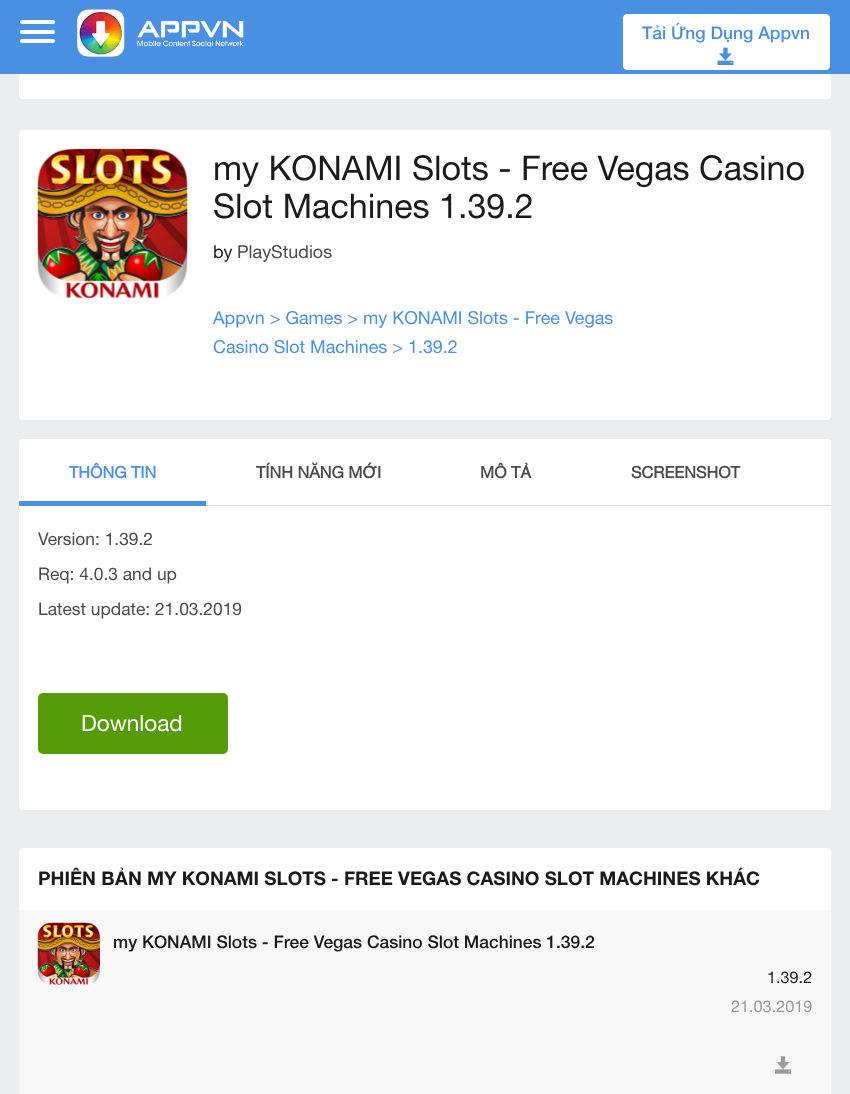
<svg xmlns="http://www.w3.org/2000/svg" width="850" height="1094">
<rect width="100%" height="100%" fill="#ecedef"/>
<rect width="850" height="74" fill="#4a90e2"/>
<rect x="20" y="20" width="35" height="4" rx="2" fill="#fff"/>
<rect x="20" y="30" width="35" height="4" rx="2" fill="#fff"/>
<rect x="20" y="39" width="35" height="4" rx="2" fill="#fff"/>
<image x="77" y="9" width="167" height="48" href="media/1.png"/>
<rect x="623.5" y="14.5" width="206" height="55" rx="3.5" fill="#fff" stroke="#fff"/>
<text x="642" y="39" style="font-family:Helvetica Neue;font-size:17.4px;font-weight:500;fill:#4a90e2">Tải Ứng Dụng Appvn</text>
<image x="717" y="47" width="17" height="18" href="media/2.png"/>
<rect x="19" y="74" width="812" height="25" rx="4" fill="#fff"/>
<rect x="19" y="130" width="812" height="290" rx="4" fill="#fff"/>
<image x="37" y="148" width="151" height="151" href="media/3.png"/>
<text x="213" y="180" style="font-family:Helvetica Neue;font-size:34.1px;fill:#1a1a1a">my KONAMI Slots - Free Vegas Casino</text>
<text x="213" y="218" style="font-family:Helvetica Neue;font-size:34.1px;fill:#1a1a1a">Slot Machines 1.39.2</text>
<text x="213" y="258" style="font-family:Helvetica Neue;font-size:17.9px;fill:#1a1a1a">by</text>
<text x="237" y="258" style="font-family:Helvetica Neue;font-size:17.9px;fill:#4a4a4a">PlayStudios</text>
<text x="213" y="324" style="font-family:Helvetica Neue;font-size:17.9px;fill:#4a90e2">Appvn &gt; Games &gt; my KONAMI Slots - Free Vegas</text>
<text x="213" y="353" style="font-family:Helvetica Neue;font-size:17.9px;fill:#4a90e2">Casino Slot Machines &gt; 1.39.2</text>
<rect x="19" y="439" width="812" height="371" rx="4" fill="#fff"/>
<rect x="206" y="505" width="625" height="1" fill="#d8d8d8"/>
<text x="69" y="478" style="font-family:Helvetica Neue;font-size:16.25px;font-weight:bold;fill:#4a90e2">THÔNG TIN</text>
<rect x="19" y="501" width="187" height="5" fill="#4a90e2"/>
<text x="256" y="478" style="font-family:Helvetica Neue;font-size:16.25px;font-weight:bold;fill:#4a4a4a">TÍNH NĂNG MỚI</text>
<text x="480" y="478" style="font-family:Helvetica Neue;font-size:16.25px;font-weight:bold;fill:#4a4a4a">MÔ TẢ</text>
<text x="631" y="478" style="font-family:Helvetica Neue;font-size:16.25px;font-weight:bold;fill:#4a4a4a">SCREENSHOT</text>
<text x="38" y="545" style="font-family:Helvetica Neue;font-size:17.4px;fill:#4a4a4a">Version: 1.39.2</text>
<text x="38" y="580" style="font-family:Helvetica Neue;font-size:17.4px;fill:#4a4a4a">Req: 4.0.3 and up</text>
<text x="38" y="615" style="font-family:Helvetica Neue;font-size:17.4px;fill:#4a4a4a">Latest update: 21.03.2019</text>
<rect x="38" y="693" width="190" height="61" rx="5" fill="#559b08"/>
<text x="81" y="731" style="font-family:Helvetica Neue;font-size:22.5px;fill:#fff">Download</text>
<rect x="19" y="848" width="812" height="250" rx="4" fill="#fff"/>
<text x="38" y="885" style="font-family:'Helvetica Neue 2';font-size:18.75px;font-weight:bold;fill:#1a1a1a">PHIÊN BẢN MY KONAMI SLOTS - FREE VEGAS CASINO SLOT MACHINES KHÁC</text>
<rect x="19" y="910" width="812" height="184" fill="#f8f8f8"/>
<image x="37" y="922" width="63" height="63" href="media/4.png"/>
<text x="113" y="948" style="font-family:Helvetica Neue;font-size:17.4px;font-weight:500;fill:#1a1a1a">my KONAMI Slots - Free Vegas Casino Slot Machines 1.39.2</text>
<text x="767" y="983" style="font-family:Helvetica Neue;font-size:16.25px;fill:#1a1a1a">1.39.2</text>
<text x="731" y="1012" style="font-family:Helvetica Neue;font-size:16.25px;fill:#9b9b9b">21.03.2019</text>
<image x="775" y="1056" width="17" height="18" href="media/5.png"/>
</svg>
